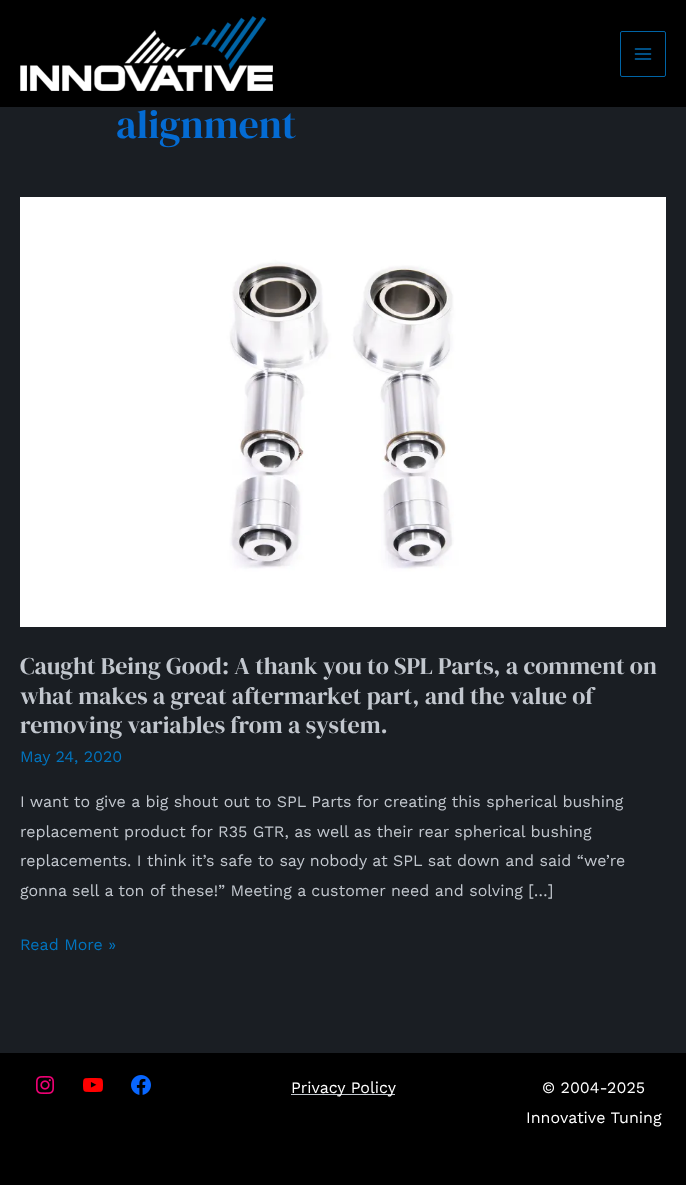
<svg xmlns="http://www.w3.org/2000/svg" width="686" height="1185">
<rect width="100%" height="100%" fill="#1a1e23"/>
<rect width="686" height="107" fill="#000"/>
<image x="20" y="16" width="253" height="75" href="media/1.png"/>
<rect x="620.5" y="31.5" width="45" height="45" rx="1.5" fill="none" stroke="#0064a6"/>
<image x="634" y="48" width="18" height="12" href="media/2.png"/>
<text x="116" y="138" style="font-family:DM Serif Display;font-size:40px;fill:#046bd2">alignment</text>
<image x="20" y="197" width="646" height="430" href="media/3.png"/>
<text x="20" y="674" style="font-family:DM Serif Display;font-size:24px;fill:#c2c7ce">Caught Being Good: A thank you to SPL Parts, a comment on</text>
<text x="20" y="704" style="font-family:DM Serif Display;font-size:24px;fill:#c2c7ce">what makes a great aftermarket part, and the value of</text>
<text x="20" y="733" style="font-family:DM Serif Display;font-size:24px;fill:#c2c7ce">removing variables from a system.</text>
<text x="20" y="762" style="font-family:Work Sans;font-size:16px;fill:#0274be">May 24, 2020</text>
<text x="20" y="807" style="font-family:Work Sans;font-size:16px;fill:#c2c7ce">I want to give a big shout out to SPL Parts for creating this spherical bushing</text>
<text x="20" y="837" style="font-family:Work Sans;font-size:16px;fill:#c2c7ce">replacement product for R35 GTR, as well as their rear spherical bushing</text>
<text x="20" y="866" style="font-family:Work Sans;font-size:16px;fill:#c2c7ce">replacements. I think it’s safe to say nobody at SPL sat down and said “we’re</text>
<text x="20" y="896" style="font-family:Work Sans;font-size:16px;fill:#c2c7ce">gonna sell a ton of these!” Meeting a customer need and solving […]</text>
<text x="20" y="950" style="font-family:Work Sans;font-size:16px;fill:#0274be">Read More »</text>
<rect y="1053" width="686" height="132" fill="#000"/>
<image x="36" y="1076" width="18" height="18" href="media/4.png"/>
<image x="83" y="1078" width="20" height="14" href="media/5.png"/>
<image x="131" y="1075" width="20" height="20" href="media/6.png"/>
<rect x="291" y="1094" width="104" height="1" fill="#c2c7ce"/>
<text x="291" y="1093" style="font-family:Work Sans;font-size:16px;fill:#fff">Privacy Policy</text>
<text x="542" y="1093" style="font-family:Work Sans;font-size:16px;fill:#fff">© 2004-2025</text>
<text x="526" y="1123" style="font-family:Work Sans;font-size:16px;fill:#fff">Innovative Tuning</text>
</svg>
